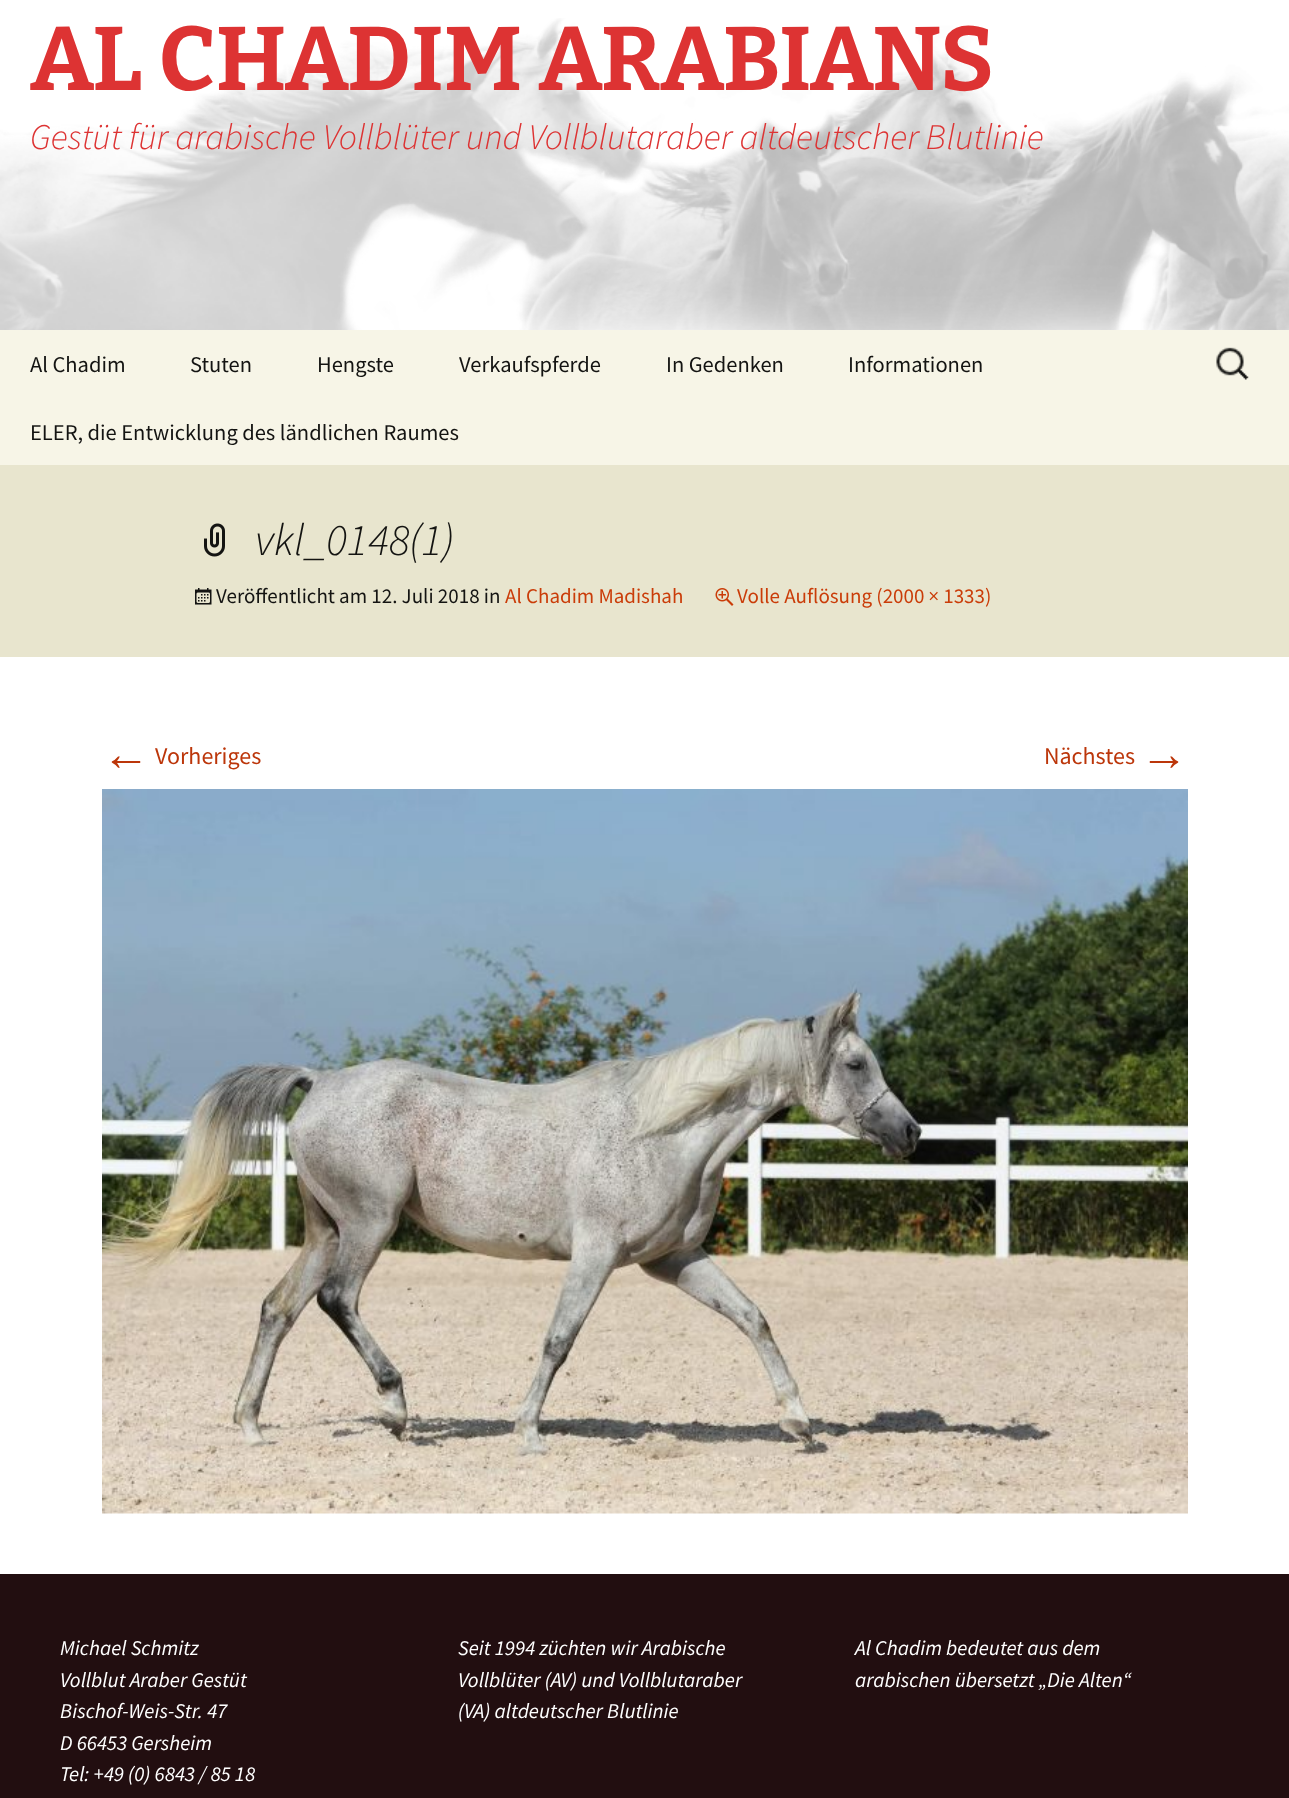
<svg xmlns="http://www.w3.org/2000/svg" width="1289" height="1798">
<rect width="100%" height="100%" fill="#fff"/>
<image x="0" y="18" width="1289" height="312" href="media/1.png"/>
<text x="30" y="90" style="font-family:Bitter;font-size:90px;font-weight:100;fill:#d33">AL CHADIM ARABIANS</text>
<text x="30" y="149" style="font-family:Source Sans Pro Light;font-size:36px;font-weight:300;font-style:italic;fill:#d33">Gestüt für arabische Vollblüter und Vollblutaraber altdeutscher Blutlinie</text>
<rect y="330" width="1289" height="135" fill="#f7f5e7"/>
<text x="30" y="372" style="font-family:Source Sans Pro;font-size:22.5px;fill:#141412">Al Chadim</text>
<text x="190" y="372" style="font-family:Source Sans Pro;font-size:22.5px;fill:#141412">Stuten</text>
<text x="317" y="372" style="font-family:Source Sans Pro;font-size:22.5px;fill:#141412">Hengste</text>
<text x="459" y="372" style="font-family:Source Sans Pro;font-size:22.5px;fill:#141412">Verkaufspferde</text>
<text x="666" y="372" style="font-family:Source Sans Pro;font-size:22.5px;fill:#141412">In Gedenken</text>
<text x="848" y="372" style="font-family:Source Sans Pro;font-size:22.5px;fill:#141412">Informationen</text>
<text x="30" y="440" style="font-family:Source Sans Pro;font-size:22.5px;fill:#141412">ELER, die Entwicklung des ländlichen Raumes</text>
<image x="1216" y="347" width="33" height="33" href="media/2.png"/>
<rect y="465" width="1289" height="192" fill="#e8e5ce"/>
<image x="204" y="523" width="21" height="34" href="media/3.png"/>
<text x="255" y="555" style="font-family:Source Sans Pro Light;font-size:45px;font-weight:300;font-style:italic;fill:#141412">vkl_0148(1)</text>
<image x="195" y="588" width="17" height="17" href="media/4.png"/>
<text x="216" y="603" style="font-family:Source Sans Pro;font-size:21px;fill:#141412">Veröffentlicht am 12. Juli 2018 in</text>
<text x="505" y="603" style="font-family:Source Sans Pro;font-size:21px;fill:#ca3c08">Al Chadim Madishah</text>
<image x="715" y="588" width="19" height="18" href="media/5.png"/>
<text x="737" y="603" style="font-family:Source Sans Pro;font-size:21px;fill:#ca3c08">Volle Auflösung (2000 × 1333)</text>
<text x="102" y="770" style="font-family:Liberation Sans;font-size:48px;fill:#bc360a">←</text>
<text x="155" y="764" style="font-family:Source Sans Pro;font-size:24px;fill:#bc360a">Vorheriges</text>
<text x="1044" y="764" style="font-family:Source Sans Pro;font-size:24px;fill:#bc360a">Nächstes</text>
<text x="1140" y="770" style="font-family:Liberation Sans;font-size:48px;fill:#bc360a">→</text>
<image x="102" y="789" width="1086" height="725" href="media/6.png"/>
<rect y="1574" width="1289" height="224" fill="#220e10"/>
<text x="60" y="1655" style="font-family:Source Sans Pro;font-size:21px;font-style:italic;fill:#fff">Michael Schmitz</text>
<text x="60" y="1687" style="font-family:Source Sans Pro;font-size:21px;font-style:italic;fill:#fff">Vollblut Araber Gestüt</text>
<text x="60" y="1718" style="font-family:Source Sans Pro;font-size:21px;font-style:italic;fill:#fff">Bischof-Weis-Str. 47</text>
<text x="60" y="1750" style="font-family:Source Sans Pro;font-size:21px;font-style:italic;fill:#fff">D 66453 Gersheim</text>
<text x="60" y="1781" style="font-family:Source Sans Pro;font-size:21px;font-style:italic;fill:#fff">Tel: +49 (0) 6843 / 85 18</text>
<text x="458" y="1655" style="font-family:Source Sans Pro;font-size:21px;font-style:italic;fill:#fff">Seit 1994 züchten wir Arabische</text>
<text x="458" y="1687" style="font-family:Source Sans Pro;font-size:21px;font-style:italic;fill:#fff">Vollblüter (AV) und Vollblutaraber</text>
<text x="458" y="1718" style="font-family:Source Sans Pro;font-size:21px;font-style:italic;fill:#fff">(VA) altdeutscher Blutlinie</text>
<text x="855" y="1655" style="font-family:Source Sans Pro;font-size:21px;font-style:italic;fill:#fff">Al Chadim bedeutet aus dem</text>
<text x="855" y="1687" style="font-family:Source Sans Pro;font-size:21px;font-style:italic;fill:#fff">arabischen übersetzt „Die Alten“</text>
</svg>
